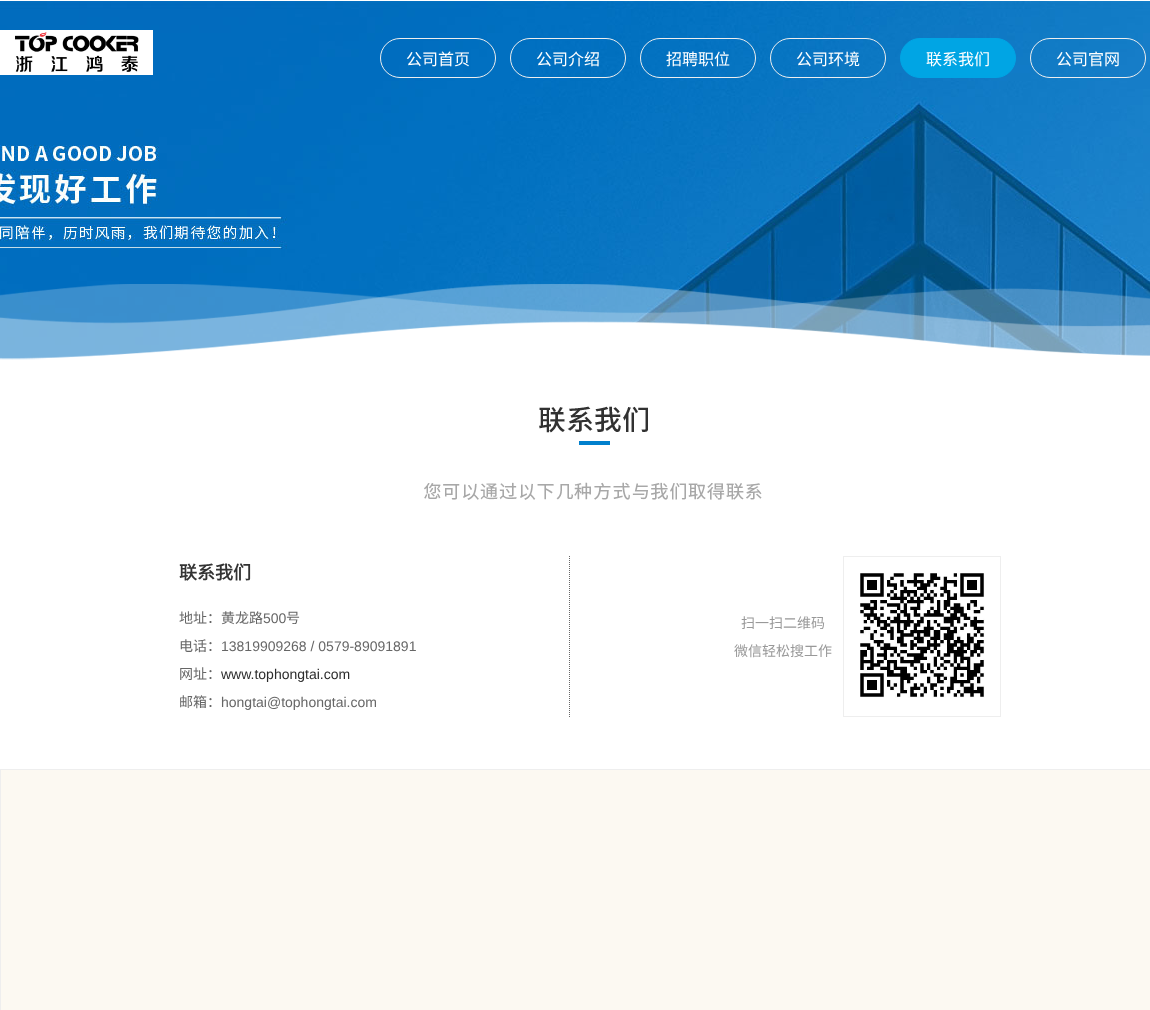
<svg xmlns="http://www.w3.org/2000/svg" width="1150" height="1010">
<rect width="100%" height="100%" fill="#fff"/>
<image x="0" y="1" width="1150" height="359" href="media/1.png"/>
<image x="0" y="30" width="153" height="45" href="media/2.png"/>
<rect x="380.5" y="38.5" width="115" height="39" rx="19.5" fill="none" stroke="#eee"/>
<text x="406" y="65" style="font-family:Noto Sans CJK SC;font-size:16px;fill:#fff">公司首页</text>
<rect x="510.5" y="38.5" width="115" height="39" rx="19.5" fill="none" stroke="#eee"/>
<text x="536" y="65" style="font-family:Noto Sans CJK SC;font-size:16px;fill:#fff">公司介绍</text>
<rect x="640.5" y="38.5" width="115" height="39" rx="19.5" fill="none" stroke="#eee"/>
<text x="666" y="65" style="font-family:Noto Sans CJK SC;font-size:16px;fill:#fff">招聘职位</text>
<rect x="770.5" y="38.5" width="115" height="39" rx="19.5" fill="none" stroke="#eee"/>
<text x="796" y="65" style="font-family:Noto Sans CJK SC;font-size:16px;fill:#fff">公司环境</text>
<rect x="900.5" y="38.5" width="115" height="39" rx="19.5" fill="#00a5e4" stroke="#00a5e4"/>
<text x="926" y="65" style="font-family:Noto Sans CJK SC;font-size:16px;fill:#fff">联系我们</text>
<rect x="1030.5" y="38.5" width="115" height="39" rx="19.5" fill="none" stroke="#eee"/>
<text x="1056" y="65" style="font-family:Noto Sans CJK SC;font-size:16px;fill:#fff">公司官网</text>
<image x="0" y="284" width="1150" height="77" href="media/3.png"/>
<image x="424" y="406" width="338" height="94" href="media/4.png"/>
<path d="M569.5 556v161" fill="none" stroke="#666" stroke-dasharray="1 1"/>
<text x="179" y="579" style="font-family:Noto Sans CJK SC;font-size:18px;font-weight:bold;fill:#333">联系我们</text>
<text x="179" y="623" style="font-family:Noto Sans CJK SC;font-size:14px;fill:#666">地址：黄龙路</text>
<text x="263" y="623" style="font-family:Liberation Sans;font-size:14px;fill:#666">500</text>
<text x="286" y="623" style="font-family:Noto Sans CJK SC;font-size:14px;fill:#666">号</text>
<text x="179" y="651" style="font-family:Noto Sans CJK SC;font-size:14px;fill:#666">电话：</text>
<text x="221" y="651" style="font-family:Liberation Sans;font-size:14px;fill:#666">13819909268 / 0579-89091891</text>
<text x="179" y="679" style="font-family:Noto Sans CJK SC;font-size:14px;fill:#666">网址：</text>
<text x="221" y="679" style="font-family:Liberation Sans;font-size:14px;fill:#2b2b2b">www.tophongtai.com</text>
<text x="179" y="707" style="font-family:Noto Sans CJK SC;font-size:14px;fill:#666">邮箱：</text>
<text x="221" y="707" style="font-family:Liberation Sans;font-size:14px;fill:#666">hongtai@tophongtai.com</text>
<text x="741" y="628" style="font-family:Noto Sans CJK SC;font-size:14px;fill:#999">扫一扫二维码</text>
<text x="734" y="656" style="font-family:Noto Sans CJK SC;font-size:14px;fill:#999">微信轻松搜工作</text>
<rect x="843.5" y="556.5" width="157" height="160" fill="none" stroke="#eee"/>
<image x="860" y="573" width="125" height="125" href="media/5.png"/>
<rect x="0.5" y="769.5" width="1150" height="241" fill="#fcf9f2" stroke="#eee"/>
</svg>
